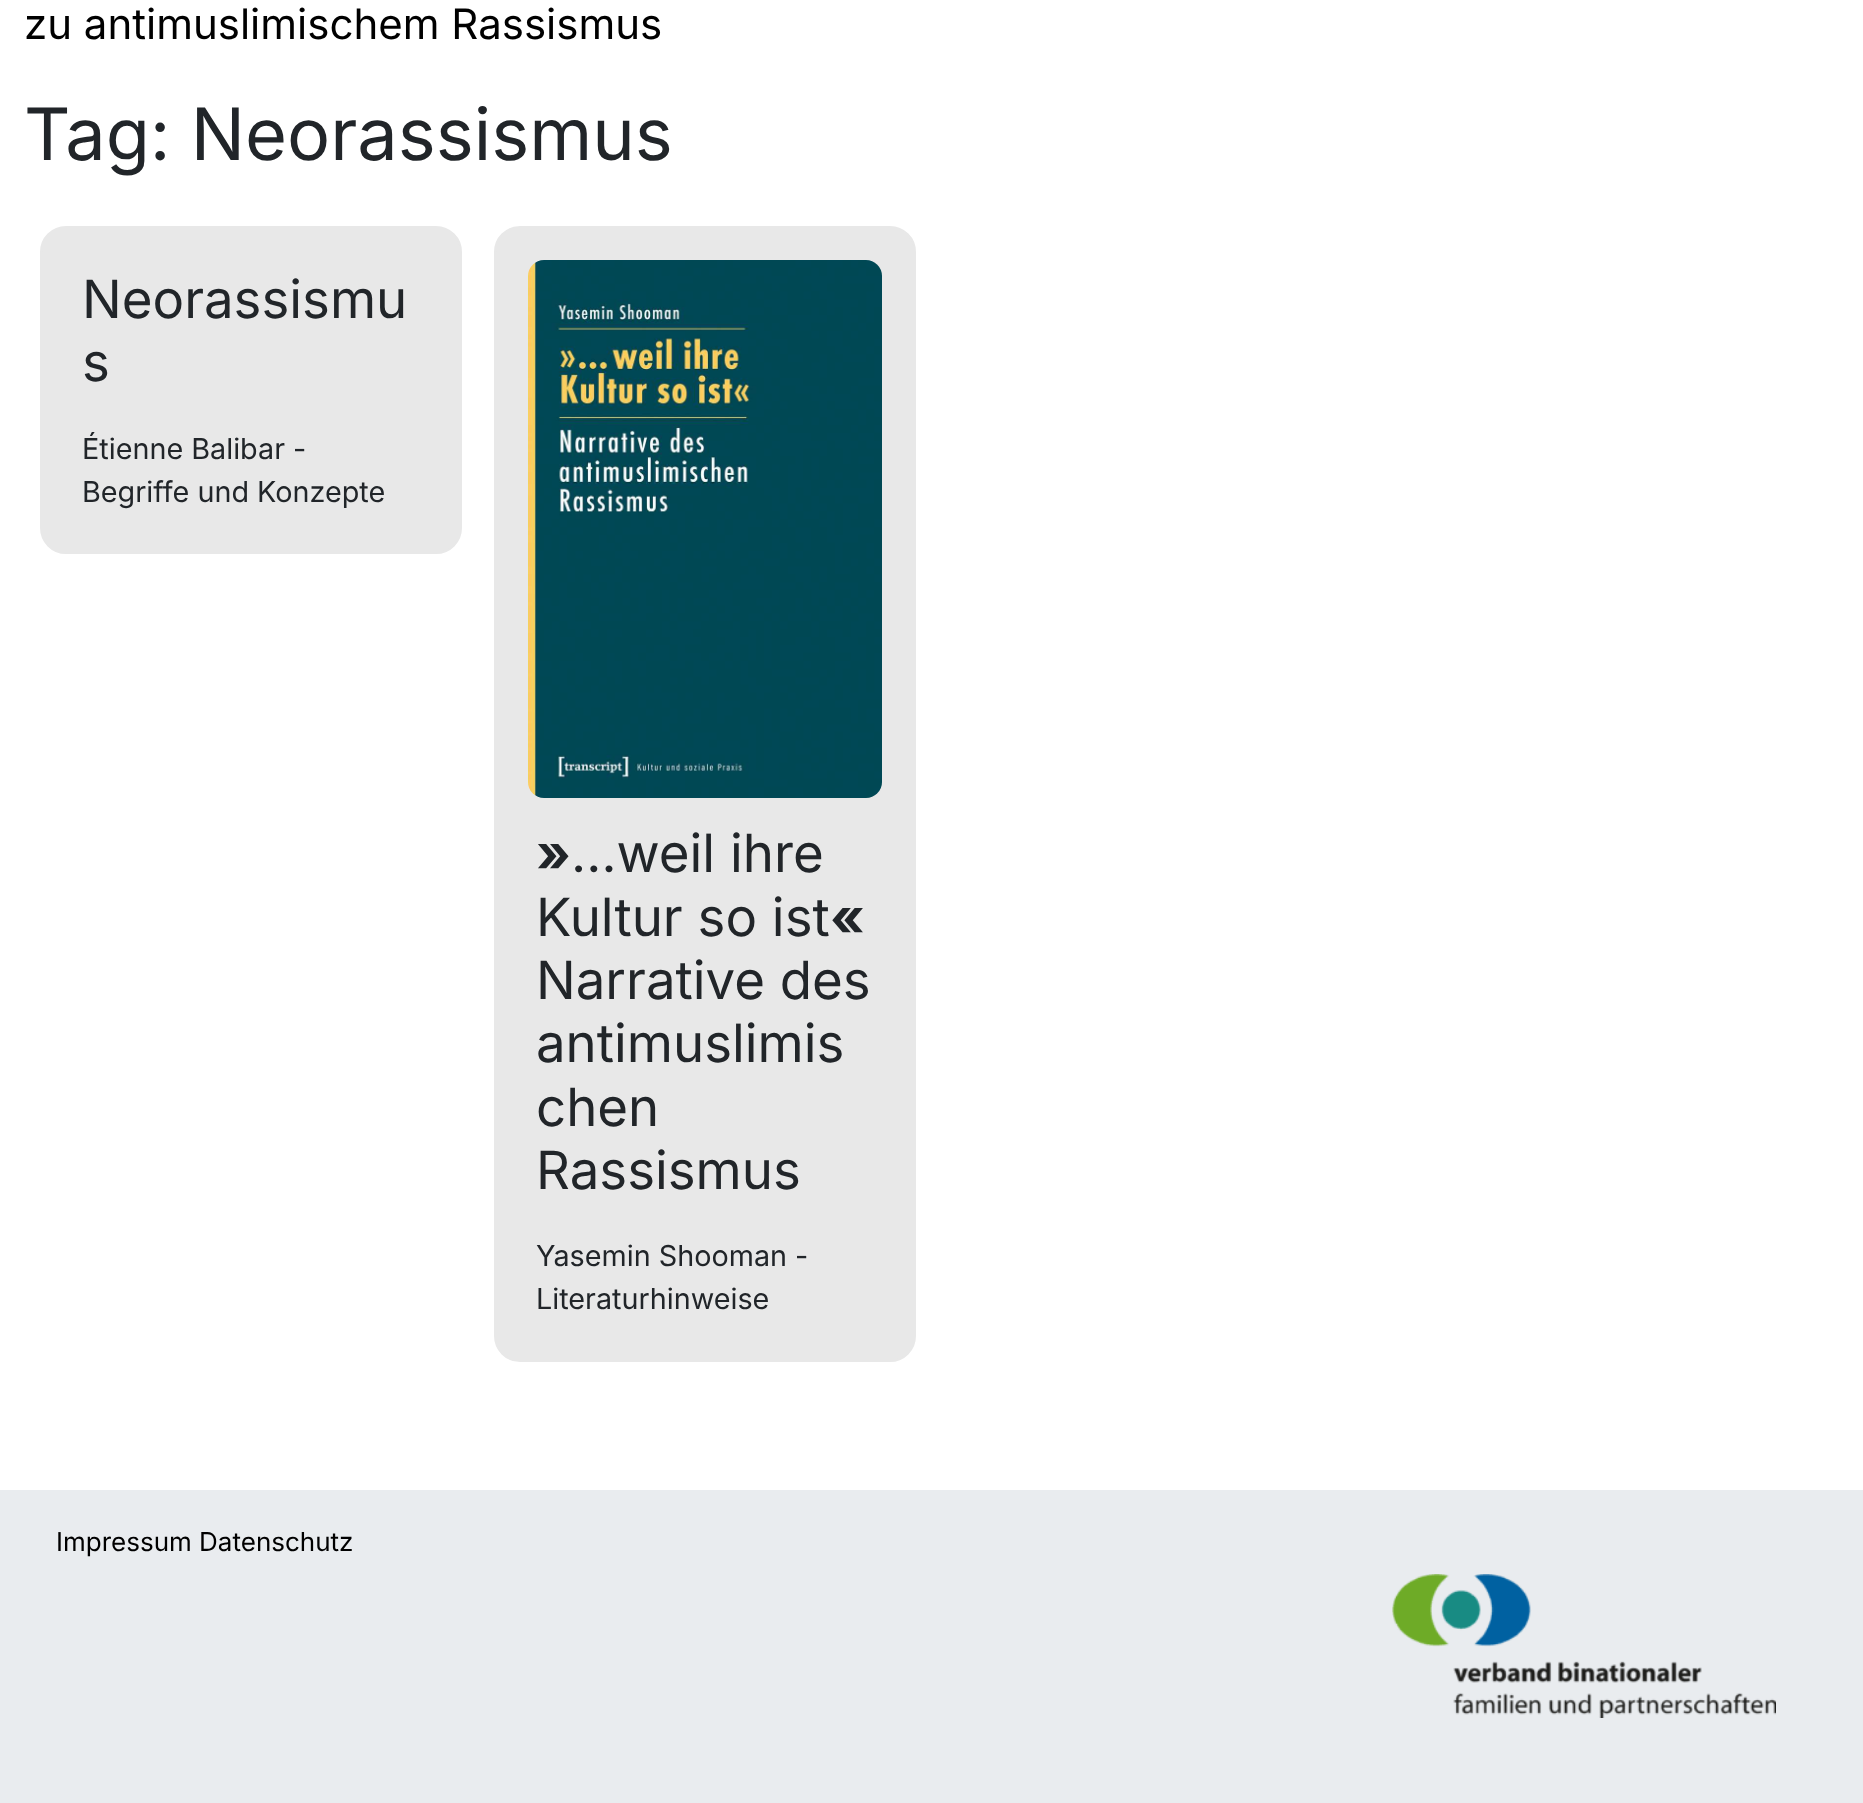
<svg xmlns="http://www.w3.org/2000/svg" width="1863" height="1803">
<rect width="100%" height="100%" fill="#fff"/>
<text x="24" y="39" style="font-family:Inter;font-size:42px;fill:#000">zu antimuslimischem Rassismus</text>
<text x="24" y="160" style="font-family:Inter;font-size:72px;fill:#212529">Tag: Neorassismus</text>
<rect x="41" y="227" width="420" height="326" rx="25" fill="#e8e8e8" stroke="#e8e8e8" stroke-width="2"/>
<text x="82" y="318" style="font-family:Inter;font-size:52.75px;fill:#212529">Neorassismu</text>
<text x="82" y="381" style="font-family:Inter;font-size:52.75px;fill:#212529">s</text>
<text x="82" y="459" style="font-family:Inter;font-size:28.75px;fill:#212529">Étienne Balibar -</text>
<text x="82" y="502" style="font-family:Inter;font-size:28.75px;fill:#212529">Begriffe und Konzepte</text>
<rect x="495" y="227" width="420" height="1134" rx="25" fill="#e8e8e8" stroke="#e8e8e8" stroke-width="2"/>
<image x="528" y="260" width="354" height="538" href="media/1.png"/>
<text x="536" y="872" style="font-family:Inter;font-size:52.75px;font-weight:bold;fill:#212529">»</text>
<text x="571" y="872" style="font-family:Inter;font-size:52.75px;fill:#212529">…weil ihre</text>
<text x="536" y="936" style="font-family:Inter;font-size:52.75px;fill:#212529">Kultur so ist</text>
<text x="830" y="936" style="font-family:Inter;font-size:52.75px;font-weight:bold;fill:#212529">«</text>
<text x="536" y="999" style="font-family:Inter;font-size:52.75px;fill:#212529">Narrative des</text>
<text x="536" y="1062" style="font-family:Inter;font-size:52.75px;fill:#212529">antimuslimis</text>
<text x="536" y="1126" style="font-family:Inter;font-size:52.75px;fill:#212529">chen</text>
<text x="536" y="1189" style="font-family:Inter;font-size:52.75px;fill:#212529">Rassismus</text>
<text x="536" y="1266" style="font-family:Inter;font-size:28.75px;fill:#212529">Yasemin Shooman -</text>
<text x="536" y="1309" style="font-family:Inter;font-size:28.75px;fill:#212529">Literaturhinweise</text>
<rect y="1490" width="1863" height="313" fill="#e9ecef"/>
<text x="56" y="1551" style="font-family:Inter;font-size:26px;fill:#000">Impressum Datenschutz</text>
<image x="1392" y="1574" width="384" height="144" href="media/2.png"/>
</svg>
